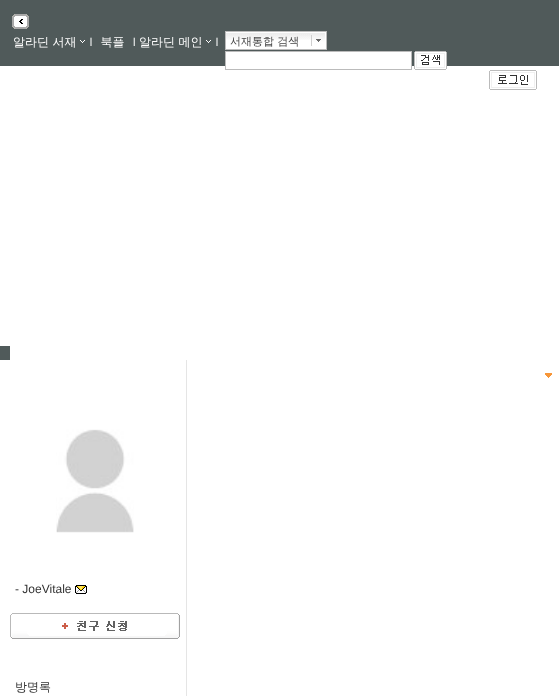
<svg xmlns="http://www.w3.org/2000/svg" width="559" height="696">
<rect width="100%" height="100%" fill="#505a5a"/>
<image x="12" y="14" width="17" height="15" href="media/1.png"/>
<text x="13" y="46" style="font-family:WenQuanYi Zen Hei;font-size:12px;font-weight:500;fill:#fff">알라딘 서재</text>
<image x="80" y="40" width="5" height="3" href="media/2.png"/>
<text x="85" y="46" style="font-family:WenQuanYi Zen Hei;font-size:12px;font-weight:500;fill:#fff">ｌ 북플 ｌ</text>
<text x="139" y="46" style="font-family:WenQuanYi Zen Hei;font-size:12px;font-weight:500;fill:#fff">알라딘 메인</text>
<image x="206" y="40" width="5" height="3" href="media/2.png"/>
<text x="211" y="46" style="font-family:WenQuanYi Zen Hei;font-size:12px;font-weight:500;fill:#fff">ｌ</text>
<rect x="226" y="32" width="100" height="17" fill="#fff"/>
<image x="226" y="33" width="85" height="7" href="media/3.png"/>
<rect x="225.5" y="31.5" width="101" height="18" fill="none" stroke="#bbb"/>
<text x="230" y="45" style="font-family:WenQuanYi Zen Hei;font-size:11px;font-weight:500;fill:#474747">서재통합 검색</text>
<image x="311" y="33" width="15" height="13" href="media/4.png"/>
<rect x="226" y="52" width="185" height="14" fill="#fff"/>
<rect y="66" width="559" height="280" fill="#fff"/>
<rect x="225.5" y="51.5" width="186" height="18" fill="none" stroke="#bbb"/>
<image x="414" y="51" width="33" height="19" href="media/5.png"/>
<image x="489" y="70" width="48" height="20" href="media/6.png"/>
<rect x="10" y="346" width="549" height="14" fill="#fff"/>
<rect y="360" width="559" height="336" fill="#fff"/>
<rect x="186" y="360" width="1" height="336" fill="#e5e5e5"/>
<image x="545" y="373" width="7" height="5" href="media/7.png"/>
<image x="56" y="429" width="78" height="104" href="media/8.png"/>
<text x="15" y="593" style="font-family:Liberation Sans;font-size:12px;fill:#333">- JoeVitale</text>
<image x="75" y="585" width="12" height="9" href="media/9.png"/>
<image x="10" y="613" width="170" height="26" href="media/10.png"/>
<text x="15" y="691" style="font-family:WenQuanYi Zen Hei;font-size:12px;font-weight:500;fill:#333">방명록</text>
</svg>
